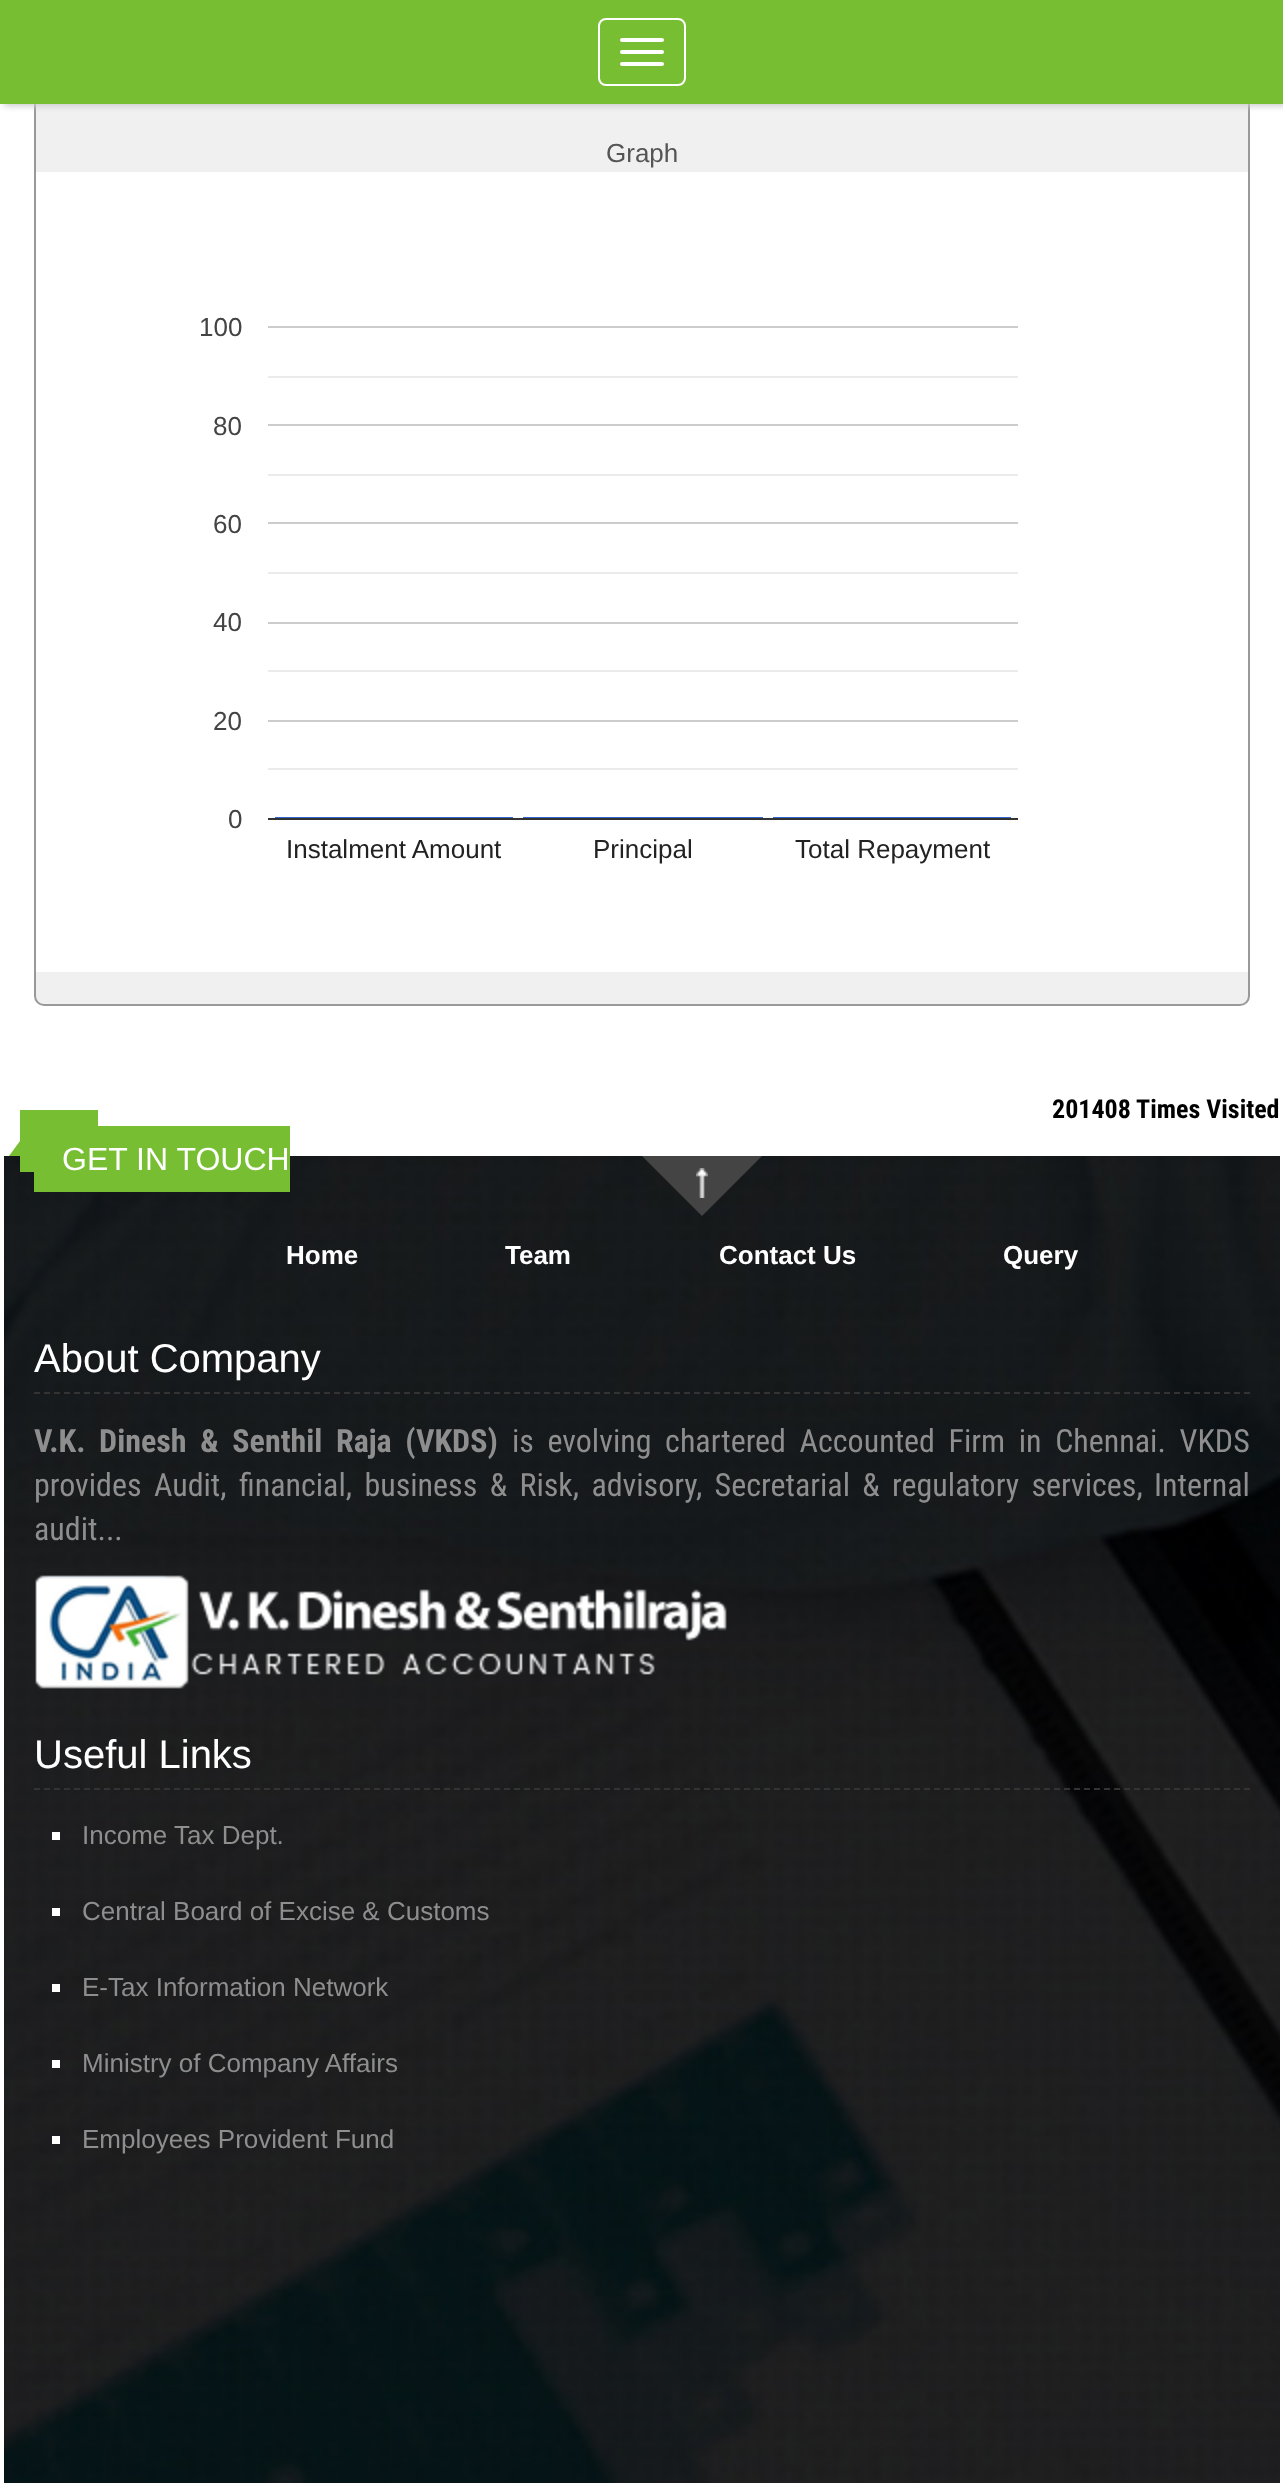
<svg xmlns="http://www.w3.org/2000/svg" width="1283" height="2483">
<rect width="100%" height="100%" fill="#fff"/>
<rect x="35" y="-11" width="1214" height="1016" rx="9" fill="#f0f0f0" stroke="#999" stroke-width="2"/>
<rect x="4" y="2" width="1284" height="104" fill="#ccc" filter="blur(3px)"/>
<rect width="1283" height="104" fill="#77be32"/>
<rect x="599" y="19" width="86" height="66" rx="7" fill="none" stroke="#fff" stroke-width="2"/>
<rect x="620" y="38" width="44" height="4" rx="2" fill="#fff"/>
<rect x="620" y="50" width="44" height="4" rx="2" fill="#fff"/>
<rect x="620" y="62" width="44" height="4" rx="2" fill="#fff"/>
<text x="606" y="162" style="font-family:Liberation Sans;font-size:26px;fill:#555">Graph</text>
<image x="36" y="172" width="1212" height="800" href="media/1.png"/>
<text x="199" y="336" style="font-family:Liberation Sans;font-size:26px;fill:#444">100</text>
<text x="213" y="435" style="font-family:Liberation Sans;font-size:26px;fill:#444">80</text>
<text x="213" y="533" style="font-family:Liberation Sans;font-size:26px;fill:#444">60</text>
<text x="213" y="631" style="font-family:Liberation Sans;font-size:26px;fill:#444">40</text>
<text x="213" y="730" style="font-family:Liberation Sans;font-size:26px;fill:#444">20</text>
<text x="228" y="828" style="font-family:Liberation Sans;font-size:26px;fill:#444">0</text>
<text x="286" y="858" style="font-family:Liberation Sans;font-size:26px;fill:#222">Instalment Amount</text>
<text x="593" y="858" style="font-family:Liberation Sans;font-size:26px;fill:#222">Principal</text>
<text x="795" y="858" style="font-family:Liberation Sans;font-size:26px;fill:#222">Total Repayment</text>
<text x="1052" y="1118" style="font-family:Roboto Condensed;font-size:26px;font-weight:bold;fill:#000">201408 Times Visited</text>
<image x="4" y="1156" width="1276" height="1327" href="media/2.png"/>
<rect x="34" y="1126" width="256" height="66" fill="#77be32"/>
<rect x="20" y="1110" width="78" height="62" fill="#77be32"/>
<text x="62" y="1170" style="font-family:Liberation Sans;font-size:32px;fill:#fff">GET IN TOUCH</text>
<path d="M31 1126h50l-22 30h-50z" fill="#77be32"/>
<path d="M642 1156h120l-60 60z" fill="#444"/>
<image x="696" y="1168" width="12" height="30" href="media/3.png"/>
<text x="286" y="1264" style="font-family:Liberation Sans;font-size:26px;font-weight:bold;fill:#fff">Home</text>
<text x="505" y="1264" style="font-family:Liberation Sans;font-size:26px;font-weight:bold;fill:#fff">Team</text>
<text x="719" y="1264" style="font-family:Liberation Sans;font-size:26px;font-weight:bold;fill:#fff">Contact Us</text>
<text x="1003" y="1264" style="font-family:Liberation Sans;font-size:26px;font-weight:bold;fill:#fff">Query</text>
<path d="M34 1393h1216" fill="none" stroke="#333" stroke-width="2" stroke-dasharray="6 4"/>
<text x="34" y="1372" style="font-family:Liberation Sans;font-size:40px;fill:#fff">About Company</text>
<text x="34" y="1452" word-spacing="6.25" style="font-family:Roboto Condensed;font-size:32px;font-weight:bold;fill:#8e8e8e">V.K. Dinesh &amp; Senthil Raja (VKDS)</text>
<text x="512" y="1452" word-spacing="6.25" style="font-family:Roboto Condensed;font-size:32px;fill:#8e8e8e">is evolving chartered Accounted Firm in Chennai. VKDS</text>
<text x="34" y="1496" word-spacing="5" style="font-family:Roboto Condensed;font-size:32px;fill:#8e8e8e">provides Audit, financial, business &amp; Risk, advisory, Secretarial &amp; regulatory services,</text>
<text x="1154" y="1496" style="font-family:Roboto Condensed;font-size:32px;fill:#8e8e8e">Internal</text>
<text x="34" y="1540" style="font-family:Roboto Condensed;font-size:32px;fill:#8e8e8e">audit...</text>
<image x="35" y="1575" width="692" height="114" href="media/4.png"/>
<path d="M34 1789h1216" fill="none" stroke="#333" stroke-width="2" stroke-dasharray="6 4"/>
<text x="34" y="1768" style="font-family:Liberation Sans;font-size:40px;fill:#fff">Useful Links</text>
<rect x="52" y="1832" width="8" height="8" fill="#fff"/>
<text x="82" y="1844" style="font-family:Liberation Sans;font-size:26px;fill:#8e8e8e">Income Tax Dept.</text>
<rect x="52" y="1908" width="8" height="8" fill="#fff"/>
<text x="82" y="1920" style="font-family:Liberation Sans;font-size:26px;fill:#8e8e8e">Central Board of Excise &amp; Customs</text>
<rect x="52" y="1984" width="8" height="8" fill="#fff"/>
<text x="82" y="1996" style="font-family:Liberation Sans;font-size:26px;fill:#8e8e8e">E-Tax Information Network</text>
<rect x="52" y="2060" width="8" height="8" fill="#fff"/>
<text x="82" y="2072" style="font-family:Liberation Sans;font-size:26px;fill:#8e8e8e">Ministry of Company Affairs</text>
<rect x="52" y="2136" width="8" height="8" fill="#fff"/>
<text x="82" y="2148" style="font-family:Liberation Sans;font-size:26px;fill:#8e8e8e">Employees Provident Fund</text>
</svg>
